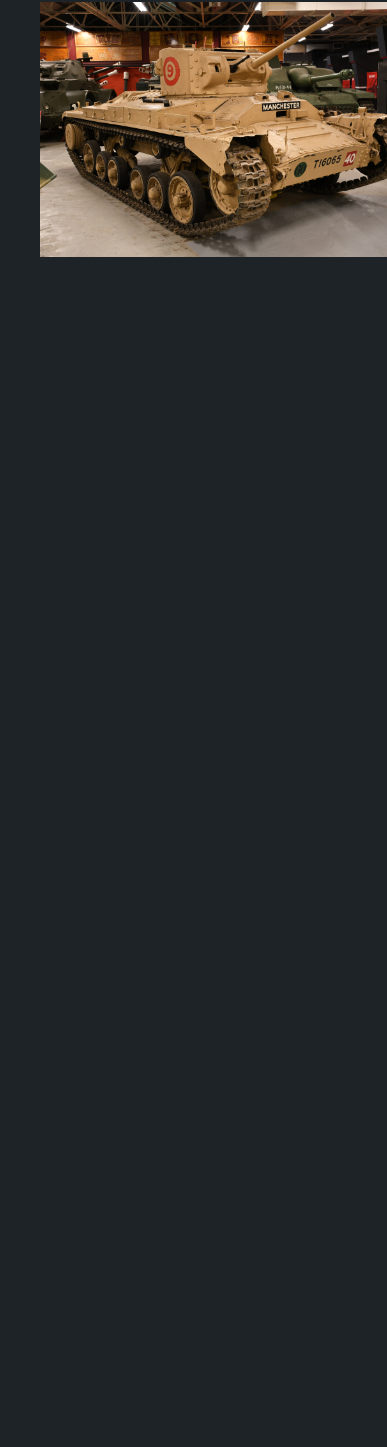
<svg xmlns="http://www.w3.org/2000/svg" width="387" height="1447">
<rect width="100%" height="100%" fill="#1d2327"/>
<image x="40" y="2" width="347" height="255" href="media/1.png"/>
</svg>
